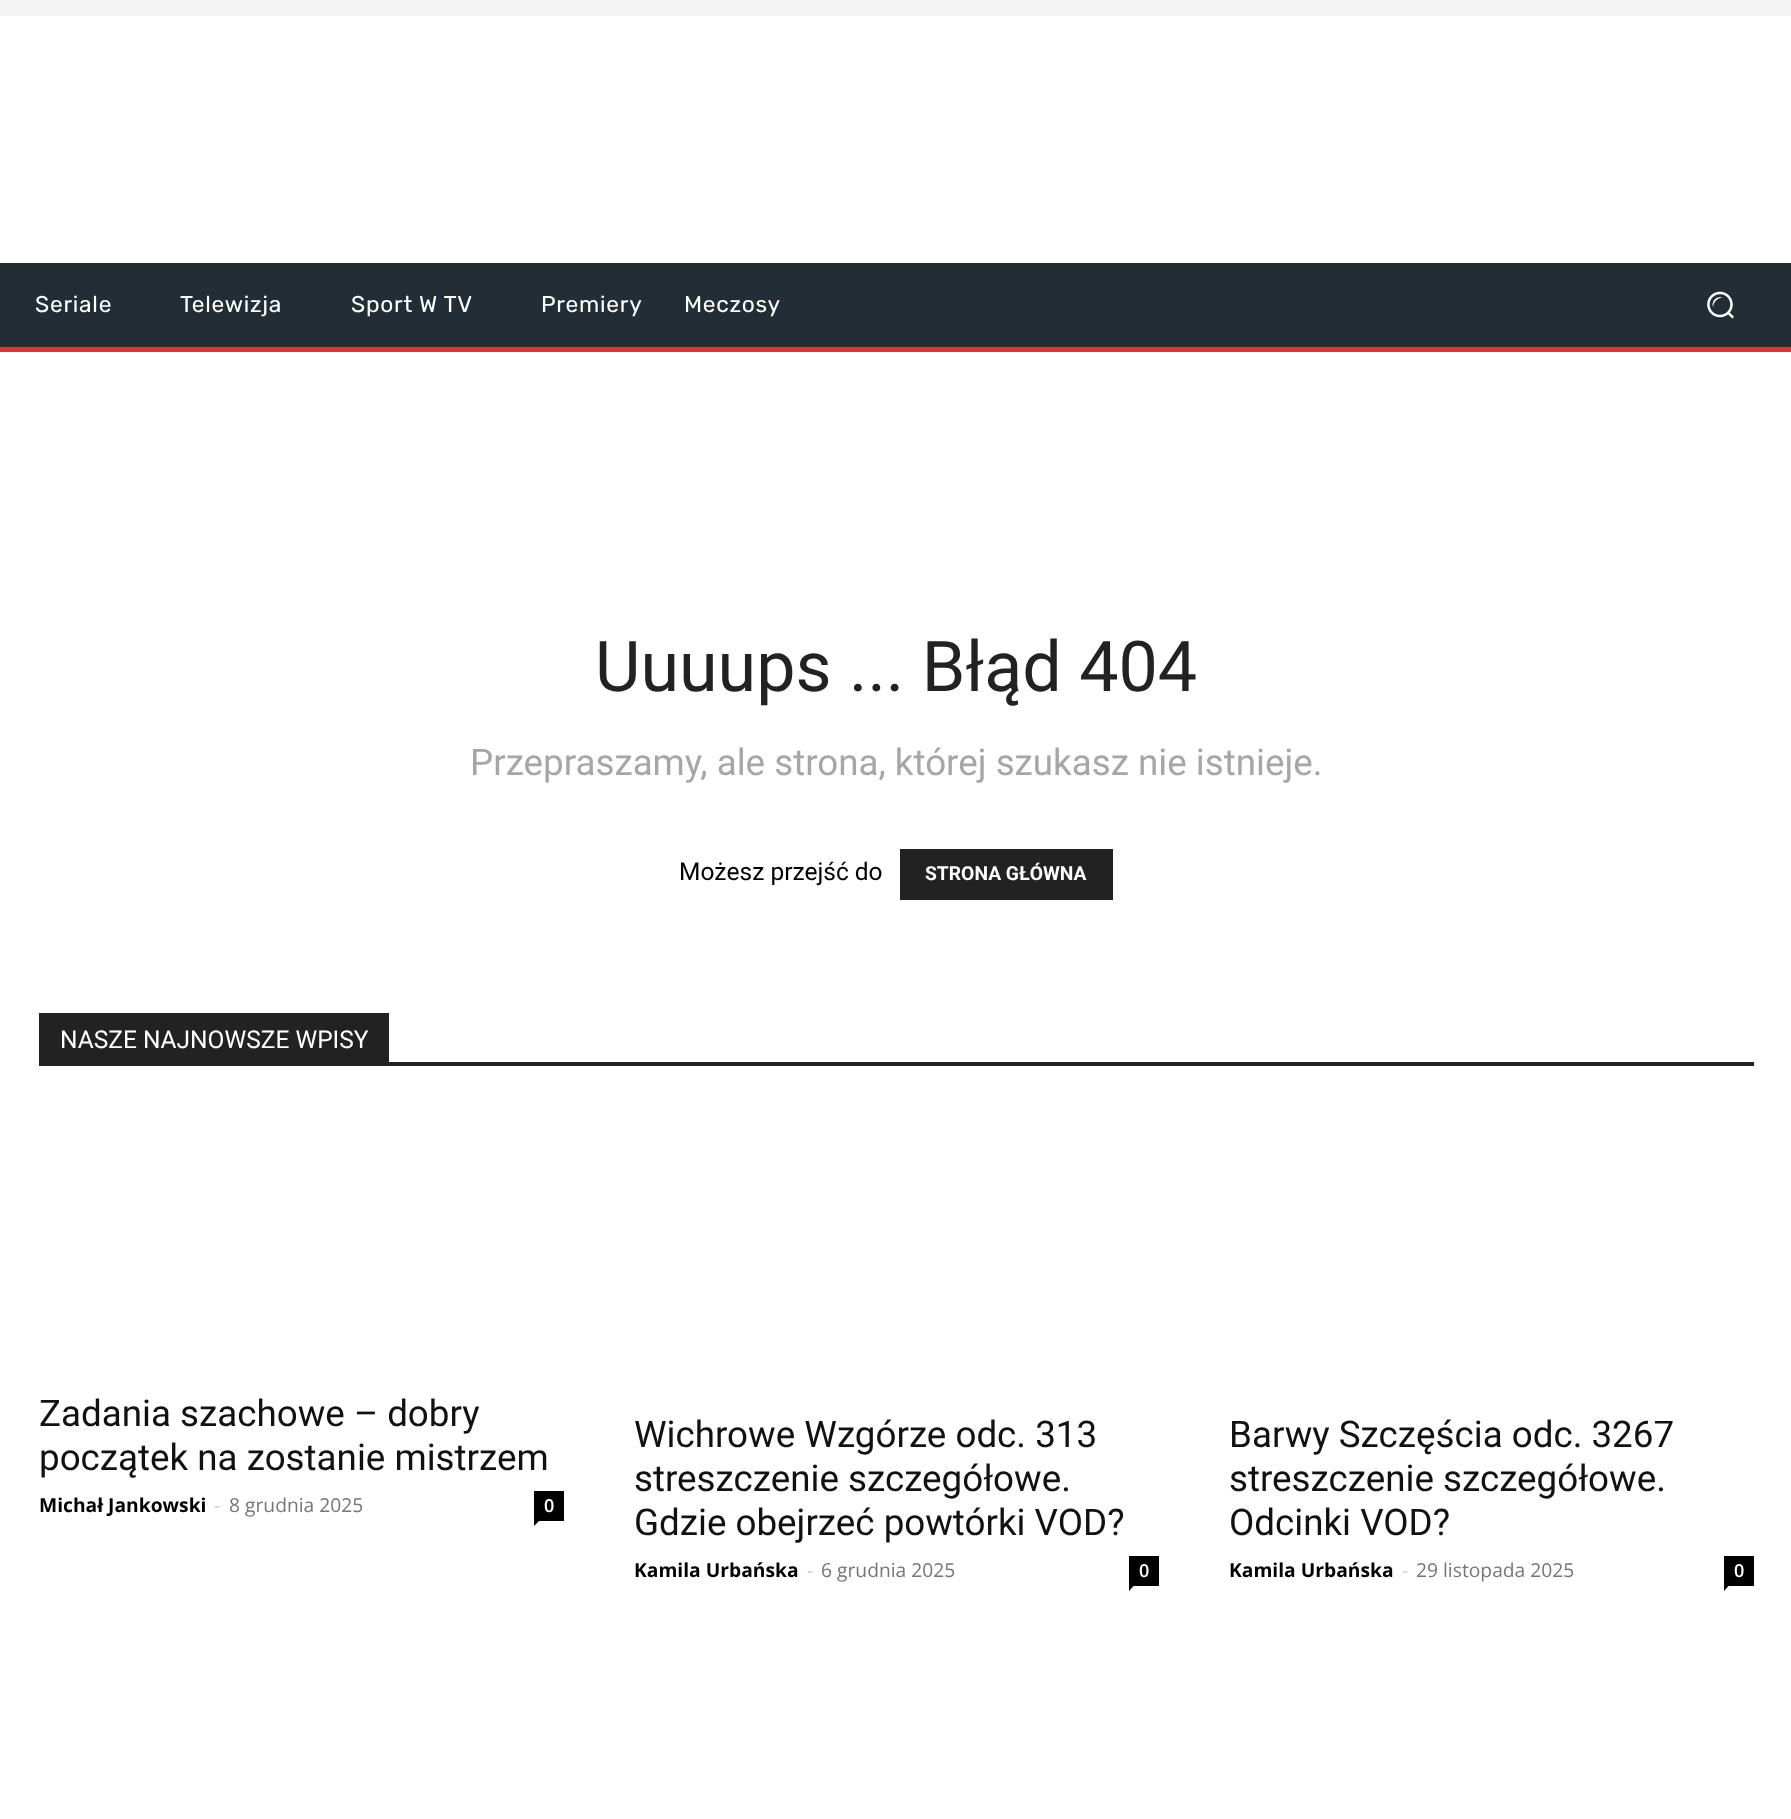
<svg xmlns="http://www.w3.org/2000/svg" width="1791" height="1819">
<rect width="100%" height="100%" fill="#fff"/>
<rect width="1791" height="16" fill="#f4f4f4"/>
<rect y="263" width="1791" height="84" fill="#232d35"/>
<text x="35" y="312" style="font-family:Rubik;font-size:22.75px;letter-spacing:0.75px;fill:#fff">Seriale</text>
<text x="180" y="312" style="font-family:Rubik;font-size:22.75px;letter-spacing:0.75px;fill:#fff">Telewizja</text>
<text x="351" y="312" style="font-family:Rubik;font-size:22.75px;letter-spacing:0.75px;fill:#fff">Sport W TV</text>
<text x="541" y="312" style="font-family:Rubik;font-size:22.75px;letter-spacing:0.75px;fill:#fff">Premiery</text>
<text x="684" y="312" style="font-family:Rubik;font-size:22.75px;letter-spacing:0.75px;fill:#fff">Meczosy</text>
<image x="1707" y="291" width="27" height="28" href="media/1.png"/>
<rect y="347" width="1791" height="5" fill="#d33"/>
<text x="595" y="691" style="font-family:Roboto;font-size:70px;fill:#222">Uuuups ... Błąd 404</text>
<text x="470" y="775" style="font-family:Roboto;font-size:36.75px;fill:#a6a6a6">Przepraszamy, ale strona, której szukasz nie istnieje.</text>
<text x="679" y="880" style="font-family:Roboto;font-size:24.5px;fill:#000">Możesz przejść do</text>
<rect x="900" y="849" width="213" height="51" fill="#222"/>
<text x="925" y="880" style="font-family:Roboto;font-size:19.25px;font-weight:bold;fill:#fff">STRONA GŁÓWNA</text>
<rect x="39" y="1062" width="1715" height="4" fill="#222"/>
<rect x="39" y="1013" width="350" height="49" fill="#222"/>
<text x="60" y="1048" style="font-family:Roboto;font-size:24.5px;fill:#fff">NASZE NAJNOWSZE WPISY</text>
<text x="39" y="1426" style="font-family:Roboto;font-size:36.75px;fill:#111">Zadania szachowe – dobry</text>
<text x="39" y="1470" style="font-family:Roboto;font-size:36.75px;fill:#111">początek na zostanie mistrzem</text>
<text x="39" y="1512" style="font-family:Open Sans;font-size:19.25px;font-weight:bold;fill:#000">Michał Jankowski</text>
<text x="214" y="1512" style="font-family:Open Sans;font-size:19.25px;fill:#ccc">-</text>
<text x="229" y="1512" style="font-family:Open Sans;font-size:19.25px;fill:#767676">8 grudnia 2025</text>
<rect x="534" y="1491" width="30" height="30" fill="#000"/>
<text x="544" y="1512" style="font-family:Open Sans;font-size:18px;font-weight:600;fill:#fff">0</text>
<path d="M534 1521h5l-5 5z" fill="#000"/>
<text x="634" y="1447" style="font-family:Roboto;font-size:36.75px;fill:#111">Wichrowe Wzgórze odc. 313</text>
<text x="634" y="1491" style="font-family:Roboto;font-size:36.75px;fill:#111">streszczenie szczegółowe.</text>
<text x="634" y="1535" style="font-family:Roboto;font-size:36.75px;fill:#111">Gdzie obejrzeć powtórki VOD?</text>
<text x="634" y="1577" style="font-family:Open Sans;font-size:19.25px;font-weight:bold;fill:#000">Kamila Urbańska</text>
<text x="807" y="1577" style="font-family:Open Sans;font-size:19.25px;fill:#ccc">-</text>
<text x="821" y="1577" style="font-family:Open Sans;font-size:19.25px;fill:#767676">6 grudnia 2025</text>
<rect x="1129" y="1556" width="30" height="30" fill="#000"/>
<text x="1139" y="1577" style="font-family:Open Sans;font-size:18px;font-weight:600;fill:#fff">0</text>
<path d="M1129 1585.5h5l-5 5.5z" fill="#000"/>
<text x="1229" y="1447" style="font-family:Roboto;font-size:36.75px;fill:#111">Barwy Szczęścia odc. 3267</text>
<text x="1229" y="1491" style="font-family:Roboto;font-size:36.75px;fill:#111">streszczenie szczegółowe.</text>
<text x="1229" y="1535" style="font-family:Roboto;font-size:36.75px;fill:#111">Odcinki VOD?</text>
<text x="1229" y="1577" style="font-family:Open Sans;font-size:19.25px;font-weight:bold;fill:#000">Kamila Urbańska</text>
<text x="1402" y="1577" style="font-family:Open Sans;font-size:19.25px;fill:#ccc">-</text>
<text x="1416" y="1577" style="font-family:Open Sans;font-size:19.25px;fill:#767676">29 listopada 2025</text>
<rect x="1724" y="1556" width="30" height="30" fill="#000"/>
<text x="1734" y="1577" style="font-family:Open Sans;font-size:18px;font-weight:600;fill:#fff">0</text>
<path d="M1724 1585.5h5l-5 5.5z" fill="#000"/>
</svg>
